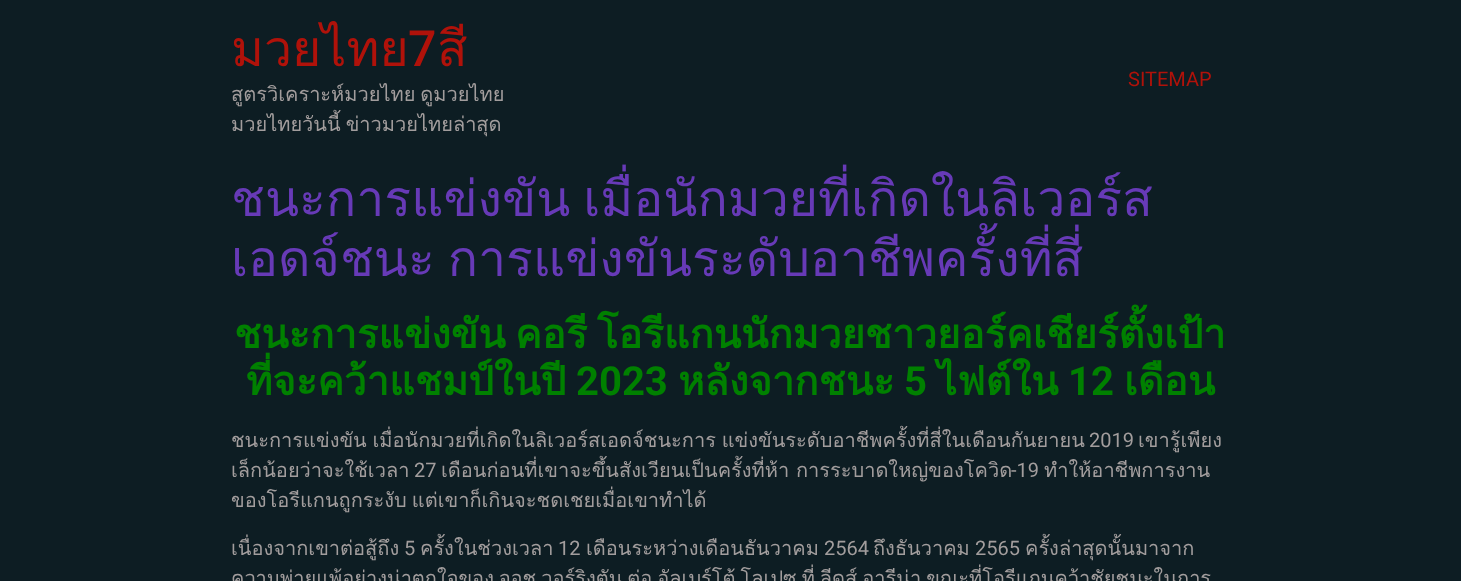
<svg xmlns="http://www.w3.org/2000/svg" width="1461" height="581">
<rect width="100%" height="100%" fill="#0d1d23"/>
<text x="231" y="66" style="font-family:Loma;font-size:50px;fill:#b0120a">มวยไทย</text>
<text x="408" y="66" style="font-family:Roboto;font-size:50px;font-weight:500;fill:#b0120a">7</text>
<text x="437" y="66" style="font-family:Loma;font-size:50px;fill:#b0120a">สี</text>
<text x="231" y="101" word-spacing="-1.75" style="font-family:Loma;font-size:20px;fill:#a29d9d">สูตรวิเคราะห์มวยไทย ดูมวยไทย</text>
<text x="231" y="131" word-spacing="-1.75" style="font-family:Loma;font-size:20px;fill:#a29d9d">มวยไทยวันนี้ ข่าวมวยไทยล่าสุด</text>
<text x="1128" y="86" style="font-family:Roboto;font-size:20px;fill:#b0120a">SITEMAP</text>
<text x="231" y="216" word-spacing="-4" style="font-family:Loma;font-size:50px;fill:#673ab7">ชนะการแข่งขัน เมื่อนักมวยที่เกิดในลิเวอร์ส</text>
<text x="231" y="276" word-spacing="-4" style="font-family:Loma;font-size:50px;fill:#673ab7">เอดจ์ชนะ การแข่งขันระดับอาชีพครั้งที่สี่</text>
<text x="234" y="348" word-spacing="-4" style="font-family:Loma;font-size:40px;font-weight:bold;fill:#008000">ชนะการแข่งขัน คอรี โอรีแกนนักมวยชาวยอร์คเชียร์ตั้งเป้า</text>
<text x="246" y="395" style="font-family:Loma;font-size:40px;font-weight:bold;fill:#008000">ที่จะคว้าแชมป์ในปี</text>
<text x="576" y="395" style="font-family:Roboto;font-size:40px;font-weight:bold;fill:#008000">2023</text>
<text x="678" y="395" style="font-family:Loma;font-size:40px;font-weight:bold;fill:#008000">หลังจากชนะ</text>
<text x="904" y="395" style="font-family:Roboto;font-size:40px;font-weight:bold;fill:#008000">5</text>
<text x="937" y="395" style="font-family:Loma;font-size:40px;font-weight:bold;fill:#008000">ไฟต์ใน</text>
<text x="1068" y="395" style="font-family:Roboto;font-size:40px;font-weight:bold;fill:#008000">12</text>
<text x="1124" y="395" style="font-family:Loma;font-size:40px;font-weight:bold;fill:#008000">เดือน</text>
<text x="231" y="447" word-spacing="-1" style="font-family:Loma;font-size:20px;fill:#a29d9d">ชนะการแข่งขัน เมื่อนักมวยที่เกิดในลิเวอร์สเอดจ์ชนะการ แข่งขันระดับอาชีพครั้งที่สี่ในเดือนกันยายน</text>
<text x="1089" y="447" style="font-family:Roboto;font-size:20px;fill:#a29d9d">2019</text>
<text x="1138" y="447" style="font-family:Loma;font-size:20px;fill:#a29d9d">เขารู้เพียง</text>
<text x="231" y="477" style="font-family:Loma;font-size:20px;fill:#a29d9d">เล็กน้อยว่าจะใช้เวลา</text>
<text x="414" y="477" style="font-family:Roboto;font-size:20px;fill:#a29d9d">27</text>
<text x="441" y="477" style="font-family:Loma;font-size:20px;fill:#a29d9d">เดือนก่อนที่เขาจะขึ้นสังเวียนเป็นครั้งที่ห้า การระบาดใหญ่ของโควิด</text>
<text x="1011" y="477" style="font-family:Roboto;font-size:20px;fill:#a29d9d">-19</text>
<text x="1044" y="477" style="font-family:Loma;font-size:20px;fill:#a29d9d">ทำให้อาชีพการงาน</text>
<text x="231" y="507" word-spacing="-1.75" style="font-family:Loma;font-size:20px;fill:#a29d9d">ของโอรีแกนถูกระงับ แต่เขาก็เกินจะชดเชยเมื่อเขาทำได้</text>
<text x="231" y="555" style="font-family:Loma;font-size:20px;fill:#a29d9d">เนื่องจากเขาต่อสู้ถึง</text>
<text x="404" y="555" style="font-family:Roboto;font-size:20px;fill:#a29d9d">5</text>
<text x="420" y="555" style="font-family:Loma;font-size:20px;fill:#a29d9d">ครั้งในช่วงเวลา</text>
<text x="558" y="555" style="font-family:Roboto;font-size:20px;fill:#a29d9d">12</text>
<text x="586" y="555" style="font-family:Loma;font-size:20px;fill:#a29d9d">เดือนระหว่างเดือนธันวาคม</text>
<text x="824" y="555" style="font-family:Roboto;font-size:20px;fill:#a29d9d">2564</text>
<text x="873" y="555" style="font-family:Loma;font-size:20px;fill:#a29d9d">ถึงธันวาคม</text>
<text x="975" y="555" style="font-family:Roboto;font-size:20px;fill:#a29d9d">2565</text>
<text x="1025" y="555" style="font-family:Loma;font-size:20px;fill:#a29d9d">ครั้งล่าสุดนั้นมาจาก</text>
<text x="231" y="585" word-spacing="-1.75" style="font-family:Loma;font-size:20px;fill:#a29d9d">ความพ่ายแพ้อย่างน่าตกใจของ จอช วอร์ริงตัน ต่อ อัลเบร์โต้ โลเปซ ที่ ลีดส์ อารีน่า ขณะที่โอรีแกนคว้าชัยชนะในการ</text>
</svg>
